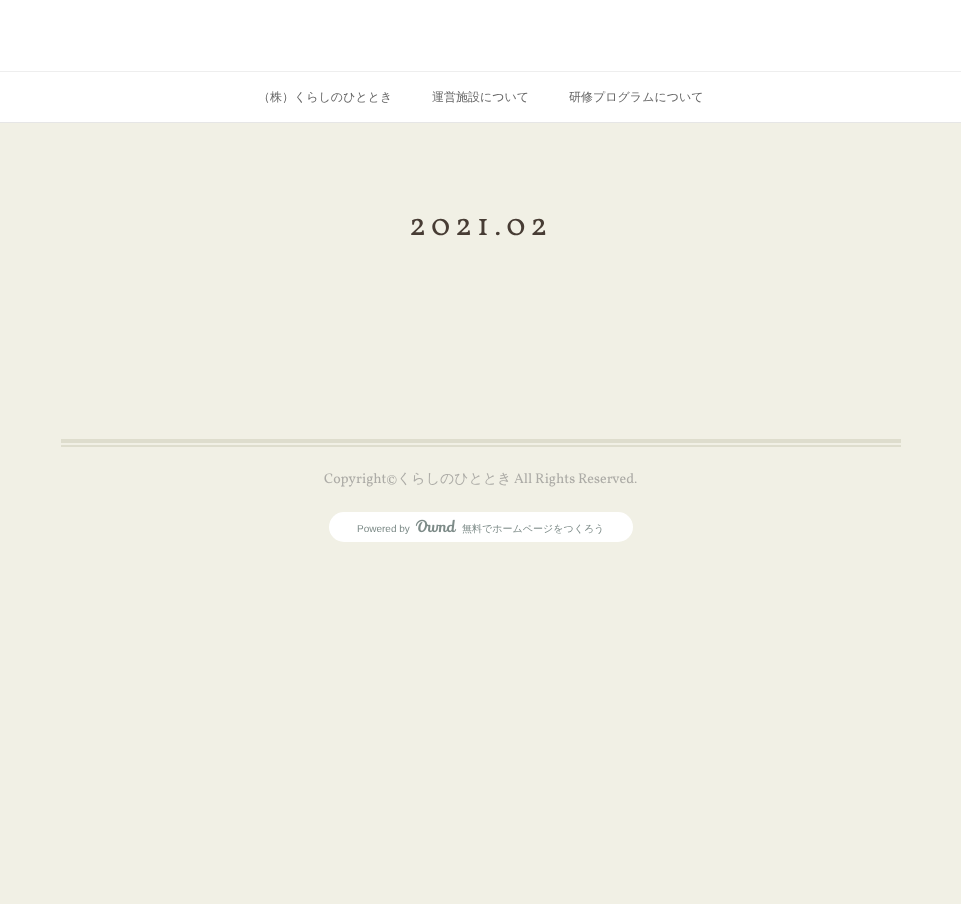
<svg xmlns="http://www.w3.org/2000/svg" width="961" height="904">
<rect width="100%" height="100%" fill="#f1f0e5"/>
<rect width="961" height="71" fill="#fff"/>
<rect y="71" width="961" height="1" fill="#eee"/>
<rect y="72" width="961" height="50" fill="#fff"/>
<rect y="122" width="961" height="1" fill="#e6e6e6"/>
<text x="258" y="101" style="font-family:WenQuanYi Zen Hei;font-size:12px;font-weight:500;fill:#666">（株）くらしのひととき</text>
<text x="432" y="101" style="font-family:WenQuanYi Zen Hei;font-size:12px;font-weight:500;fill:#666">運営施設について</text>
<text x="569" y="101" style="font-family:WenQuanYi Zen Hei;font-size:12px;font-weight:500;fill:#666">研修プログラムについて</text>
<text x="409" y="235" style="font-family:Vollkorn;font-size:32px;letter-spacing:4.75px;fill:#473c34">2021.02</text>
<rect x="61" y="439" width="840" height="4" fill="#deddcd"/>
<rect x="61" y="445" width="840" height="2" fill="#deddcd"/>
<text x="324" y="483" style="font-family:Vollkorn;font-size:14px;fill:#acaba6">Copyright©︎</text>
<text x="397" y="483" style="font-family:WenQuanYi Zen Hei;font-size:14px;font-weight:500;fill:#acaba6">くらしのひととき</text>
<text x="514" y="483" style="font-family:Vollkorn;font-size:14px;fill:#acaba6">All Rights Reserved.</text>
<rect x="329" y="512" width="304" height="30" rx="15" fill="#fff"/>
<text x="357" y="532" style="font-family:Liberation Sans;font-size:10px;fill:#7d8b88">Powered by</text>
<image x="415" y="519" width="42" height="14" href="media/1.png"/>
<text x="462" y="532" style="font-family:WenQuanYi Zen Hei;font-size:10px;font-weight:500;fill:#7d8b88">無料でホームページをつくろう</text>
</svg>
